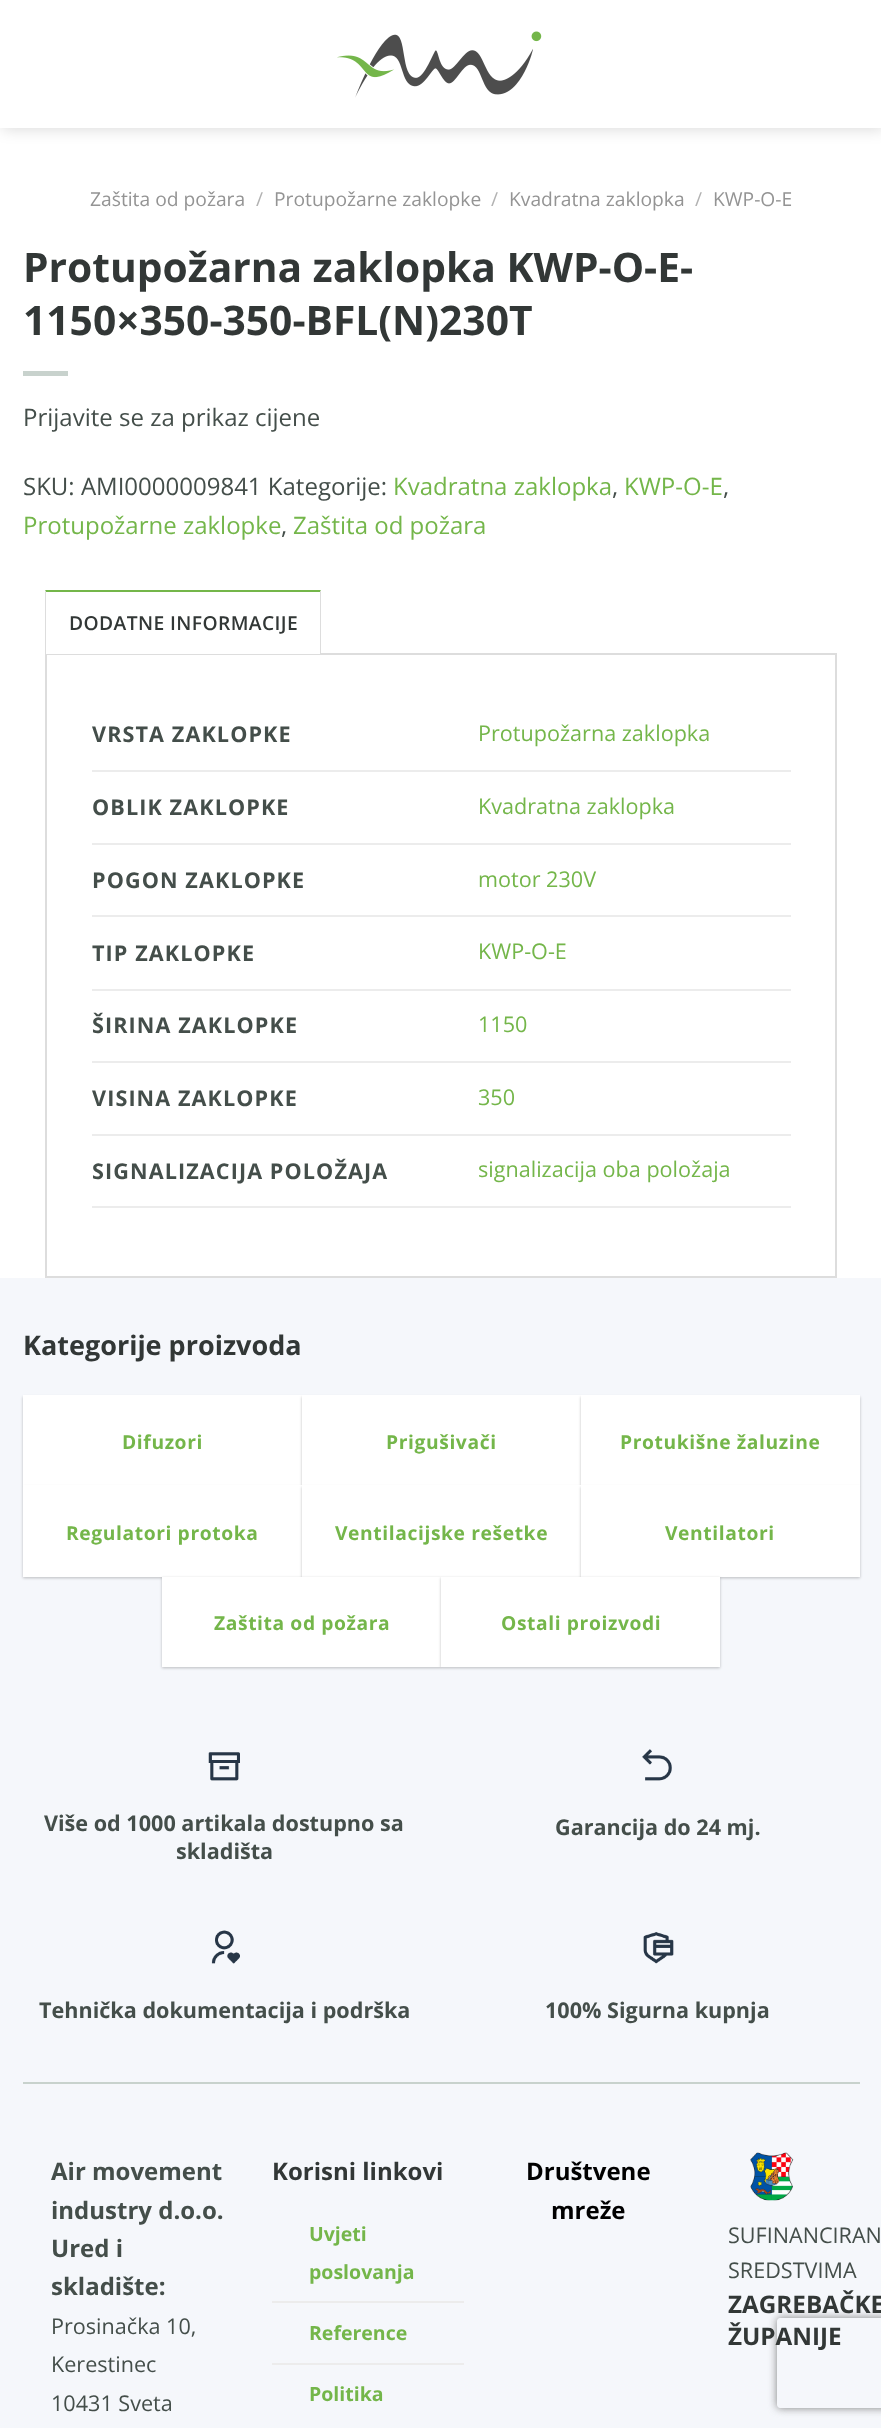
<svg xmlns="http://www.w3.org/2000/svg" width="881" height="2428">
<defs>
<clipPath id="clip1"><path d="M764 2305h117v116h-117zm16 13h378c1.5 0 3 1.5 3 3v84c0 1.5-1.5 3-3 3h-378c-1.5 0-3-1.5-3-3v-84c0-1.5 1.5-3 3-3z" clip-rule="evenodd"/></clipPath>
</defs>
<rect width="100%" height="100%" fill="#fff"/>
<rect x="2" y="2" width="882" height="127" fill="#00000026" filter="blur(7.5px)"/>
<rect width="881" height="128" fill="#fff"/>
<image x="337" y="31" width="205" height="67" href="media/1.png"/>
<text x="90" y="206" style="font-family:Open Sans;font-size:19.25px;fill:#949494">Zaštita od požara</text>
<text x="256" y="206" style="font-family:Open Sans;font-size:19.25px;fill:#b2b2b2">/</text>
<text x="274" y="206" style="font-family:Open Sans;font-size:19.25px;fill:#949494">Protupožarne zaklopke</text>
<text x="491" y="206" style="font-family:Open Sans;font-size:19.25px;fill:#b2b2b2">/</text>
<text x="509" y="206" style="font-family:Open Sans;font-size:19.25px;fill:#949494">Kvadratna zaklopka</text>
<text x="695" y="206" style="font-family:Open Sans;font-size:19.25px;fill:#b2b2b2">/</text>
<text x="713" y="206" style="font-family:Open Sans;font-size:19.25px;fill:#949494">KWP-O-E</text>
<text x="23" y="282" style="font-family:Open Sans;font-size:40.75px;font-weight:bold;fill:#323736">Protupožarna zaklopka KWP-O-E-</text>
<text x="23" y="335" style="font-family:Open Sans;font-size:40.75px;font-weight:bold;fill:#323736">1150×350-350-BFL(N)230T</text>
<rect x="23" y="371" width="45" height="5" fill="#c8d2cd"/>
<text x="23" y="426" style="font-family:Open Sans;font-size:24px;fill:#444e4a">Prijavite se za prikaz cijene</text>
<text x="23" y="495" style="font-family:Open Sans;font-size:24px;fill:#444e4a">SKU: AMI0000009841 Kategorije:</text>
<text x="393" y="495" style="font-family:Open Sans;font-size:24px;fill:#74b64a">Kvadratna zaklopka</text>
<text x="612" y="495" style="font-family:Open Sans;font-size:24px;fill:#444e4a">,</text>
<text x="624" y="495" style="font-family:Open Sans;font-size:24px;fill:#74b64a">KWP-O-E</text>
<text x="723" y="495" style="font-family:Open Sans;font-size:24px;fill:#444e4a">,</text>
<text x="23" y="534" style="font-family:Open Sans;font-size:24px;fill:#74b64a">Protupožarne zaklopke</text>
<text x="281" y="534" style="font-family:Open Sans;font-size:24px;fill:#444e4a">,</text>
<text x="293" y="534" style="font-family:Open Sans;font-size:24px;fill:#74b64a">Zaštita od požara</text>
<rect x="46" y="654" width="790" height="623" fill="none" stroke="#ddd" stroke-width="2"/>
<rect x="45" y="653" width="276" height="1" fill="#fff"/>
<path d="M45 590h276l-1 2h-274z" fill="#74b64a"/>
<path d="M321 590v64h-1v-62z" fill="#ddd"/>
<path d="M45 654v-64l1 2v62z" fill="#ddd"/>
<text x="69" y="630" style="font-family:Open Sans;font-size:19.25px;font-weight:600;letter-spacing:0.4px;fill:#323736">DODATNE INFORMACIJE</text>
<rect x="92" y="770" width="699" height="2" fill="#ececec"/>
<text x="92" y="742" style="font-family:Open Sans;font-size:21.6px;font-weight:bold;letter-spacing:1.1px;fill:#444e4a">VRSTA ZAKLOPKE</text>
<text x="478" y="741" style="font-family:Open Sans;font-size:21.6px;fill:#74b64a">Protupožarna zaklopka</text>
<rect x="92" y="843" width="699" height="2" fill="#ececec"/>
<text x="92" y="815" style="font-family:Open Sans;font-size:21.6px;font-weight:bold;letter-spacing:1.1px;fill:#444e4a">OBLIK ZAKLOPKE</text>
<text x="478" y="814" style="font-family:Open Sans;font-size:21.6px;fill:#74b64a">Kvadratna zaklopka</text>
<rect x="92" y="915" width="699" height="2" fill="#ececec"/>
<text x="92" y="888" style="font-family:Open Sans;font-size:21.6px;font-weight:bold;letter-spacing:1.1px;fill:#444e4a">POGON ZAKLOPKE</text>
<text x="478" y="887" style="font-family:Open Sans;font-size:21.6px;fill:#74b64a">motor 230V</text>
<rect x="92" y="989" width="699" height="2" fill="#ececec"/>
<text x="92" y="961" style="font-family:Open Sans;font-size:21.6px;font-weight:bold;letter-spacing:1.1px;fill:#444e4a">TIP ZAKLOPKE</text>
<text x="478" y="959" style="font-family:Open Sans;font-size:21.6px;fill:#74b64a">KWP-O-E</text>
<rect x="92" y="1061" width="699" height="2" fill="#ececec"/>
<text x="92" y="1033" style="font-family:Open Sans;font-size:21.6px;font-weight:bold;letter-spacing:1.1px;fill:#444e4a">ŠIRINA ZAKLOPKE</text>
<text x="478" y="1032" style="font-family:Open Sans;font-size:21.6px;fill:#74b64a">1150</text>
<rect x="92" y="1134" width="699" height="2" fill="#ececec"/>
<text x="92" y="1106" style="font-family:Open Sans;font-size:21.6px;font-weight:bold;letter-spacing:1.1px;fill:#444e4a">VISINA ZAKLOPKE</text>
<text x="478" y="1105" style="font-family:Open Sans;font-size:21.6px;fill:#74b64a">350</text>
<rect x="92" y="1206" width="699" height="2" fill="#ececec"/>
<text x="92" y="1179" style="font-family:Open Sans;font-size:21.6px;font-weight:bold;letter-spacing:1.1px;fill:#444e4a">SIGNALIZACIJA POLOŽAJA</text>
<text x="478" y="1177" style="font-family:Open Sans;font-size:21.6px;fill:#74b64a">signalizacija oba položaja</text>
<rect y="1278" width="881" height="1150" fill="#f5f7fb"/>
<text x="23" y="1355" style="font-family:Open Sans;font-size:27px;font-weight:bold;fill:#323736">Kategorije proizvoda</text>
<rect x="23" y="1397" width="279" height="90" fill="#0000003d" filter="blur(1.5px)"/>
<rect x="23" y="1395" width="279" height="90" fill="#fff"/>
<text x="122" y="1449" style="font-family:Open Sans;font-size:19.25px;font-weight:bold;letter-spacing:0.6px;fill:#74b64a">Difuzori</text>
<rect x="302" y="1397" width="279" height="90" fill="#0000003d" filter="blur(1.5px)"/>
<rect x="302" y="1395" width="279" height="90" fill="#fff"/>
<text x="386" y="1449" style="font-family:Open Sans;font-size:19.25px;font-weight:bold;letter-spacing:0.6px;fill:#74b64a">Prigušivači</text>
<rect x="581" y="1397" width="279" height="90" fill="#0000003d" filter="blur(1.5px)"/>
<rect x="581" y="1395" width="279" height="90" fill="#fff"/>
<text x="620" y="1449" style="font-family:Open Sans;font-size:19.25px;font-weight:bold;letter-spacing:0.6px;fill:#74b64a">Protukišne žaluzine</text>
<rect x="23" y="1487" width="279" height="91" fill="#0000003d" filter="blur(1.5px)"/>
<rect x="23" y="1485" width="279" height="92" fill="#fff"/>
<text x="66" y="1540" style="font-family:Open Sans;font-size:19.25px;font-weight:bold;letter-spacing:0.6px;fill:#74b64a">Regulatori protoka</text>
<rect x="302" y="1487" width="279" height="91" fill="#0000003d" filter="blur(1.5px)"/>
<rect x="302" y="1485" width="279" height="92" fill="#fff"/>
<text x="335" y="1540" style="font-family:Open Sans;font-size:19.25px;font-weight:bold;letter-spacing:0.6px;fill:#74b64a">Ventilacijske rešetke</text>
<rect x="581" y="1487" width="279" height="91" fill="#0000003d" filter="blur(1.5px)"/>
<rect x="581" y="1485" width="279" height="92" fill="#fff"/>
<text x="665" y="1540" style="font-family:Open Sans;font-size:19.25px;font-weight:bold;letter-spacing:0.6px;fill:#74b64a">Ventilatori</text>
<rect x="162" y="1578" width="279" height="90" fill="#0000003d" filter="blur(1.5px)"/>
<rect x="162" y="1577" width="279" height="90" fill="#fff"/>
<text x="214" y="1630" style="font-family:Open Sans;font-size:19.25px;font-weight:bold;letter-spacing:0.6px;fill:#74b64a">Zaštita od požara</text>
<rect x="441" y="1578" width="279" height="90" fill="#0000003d" filter="blur(1.5px)"/>
<rect x="441" y="1577" width="279" height="90" fill="#fff"/>
<text x="501" y="1630" style="font-family:Open Sans;font-size:19.25px;font-weight:bold;letter-spacing:0.6px;fill:#74b64a">Ostali proizvodi</text>
<image x="208" y="1752" width="32" height="29" href="media/2.png"/>
<text x="44" y="1831" style="font-family:Open Sans;font-size:21.6px;font-weight:bold;fill:#444e4a">Više od 1000 artikala dostupno sa</text>
<text x="176" y="1859" style="font-family:Open Sans;font-size:21.6px;font-weight:bold;fill:#444e4a">skladišta</text>
<image x="642" y="1749" width="30" height="32" href="media/3.png"/>
<text x="555" y="1835" style="font-family:Open Sans;font-size:21.6px;font-weight:bold;fill:#444e4a">Garancija do 24 mj.</text>
<image x="211" y="1930" width="29" height="34" href="media/4.png"/>
<text x="39" y="2018" style="font-family:Open Sans;font-size:21.6px;font-weight:bold;fill:#444e4a">Tehnička dokumentacija i podrška</text>
<image x="643" y="1932" width="31" height="32" href="media/5.png"/>
<text x="545" y="2018" style="font-family:Open Sans;font-size:21.6px;font-weight:bold;fill:#444e4a">100% Sigurna kupnja</text>
<rect x="23" y="2082" width="837" height="2" fill="#c8d2cd"/>
<text x="51" y="2180" style="font-family:Open Sans;font-size:24px;font-weight:bold;fill:#444e4a">Air movement</text>
<text x="51" y="2219" style="font-family:Open Sans;font-size:24px;font-weight:bold;fill:#444e4a">industry d.o.o.</text>
<text x="51" y="2257" style="font-family:Open Sans;font-size:24px;font-weight:bold;fill:#444e4a">Ured i</text>
<text x="51" y="2295" style="font-family:Open Sans;font-size:24px;font-weight:bold;fill:#444e4a">skladište:</text>
<text x="51" y="2334" style="font-family:Open Sans;font-size:21.6px;fill:#444e4a">Prosinačka 10,</text>
<text x="51" y="2372" style="font-family:Open Sans;font-size:21.6px;fill:#444e4a">Kerestinec</text>
<text x="51" y="2411" style="font-family:Open Sans;font-size:21.6px;fill:#444e4a">10431 Sveta</text>
<text x="272" y="2180" style="font-family:Open Sans;font-size:24px;font-weight:bold;fill:#323736">Korisni linkovi</text>
<rect x="272" y="2301" width="192" height="2" fill="#ececec"/>
<text x="309" y="2241" style="font-family:Open Sans;font-size:19.5px;font-weight:bold;fill:#74b64a">Uvjeti</text>
<text x="309" y="2279" style="font-family:Open Sans;font-size:19.5px;font-weight:bold;fill:#74b64a">poslovanja</text>
<rect x="272" y="2363" width="192" height="2" fill="#ececec"/>
<text x="309" y="2340" style="font-family:Open Sans;font-size:19.5px;font-weight:bold;fill:#74b64a">Reference</text>
<text x="309" y="2401" style="font-family:Open Sans;font-size:19.5px;font-weight:bold;fill:#74b64a">Politika</text>
<text x="526" y="2180" style="font-family:Open Sans;font-size:24px;font-weight:bold;fill:#000">Društvene</text>
<text x="551" y="2219" style="font-family:Open Sans;font-size:24px;font-weight:bold;fill:#000">mreže</text>
<image x="750" y="2152" width="44" height="49" href="media/6.png"/>
<text x="728" y="2243" style="font-family:Open Sans;font-size:21.6px;fill:#444e4a">SUFINANCIRAN</text>
<text x="728" y="2278" style="font-family:Open Sans;font-size:21.6px;fill:#444e4a">SREDSTVIMA</text>
<g clip-path="url(#clip1)">
<rect x="777" y="2318" width="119" height="90" rx="3" fill="#808080" filter="blur(4px)"/>
</g>
<text x="728" y="2313" style="font-family:Open Sans;font-size:24.25px;font-weight:bold;fill:#323736">ZAGREBAČKE</text>
<text x="728" y="2345" style="font-family:Open Sans;font-size:24.25px;font-weight:bold;fill:#323736">ŽUPANIJE</text>
</svg>
